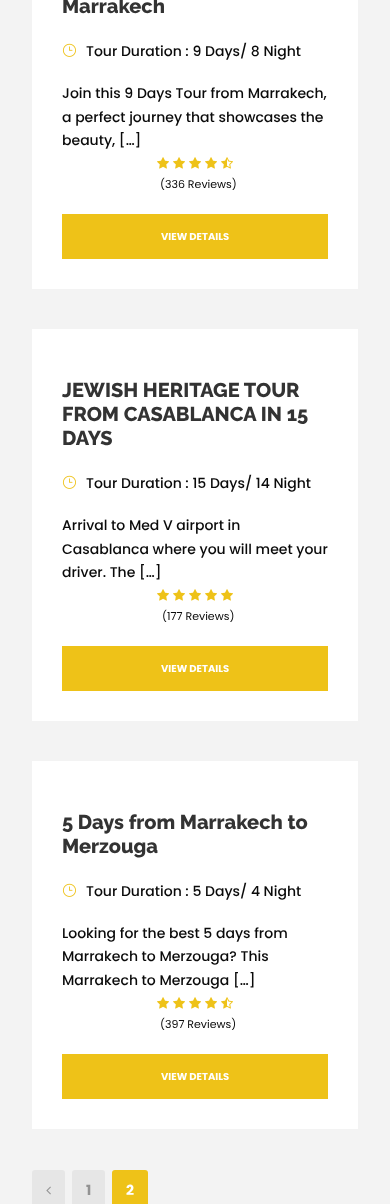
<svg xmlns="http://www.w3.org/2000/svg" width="390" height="1204">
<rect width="100%" height="100%" fill="#f3f3f3"/>
<rect x="32" width="326" height="289" fill="#fff"/>
<text x="62" y="13" style="font-family:Raleway;font-size:20px;font-weight:800;fill:#333">Marrakech</text>
<image x="62" y="43" width="14" height="14" href="media/1.png"/>
<text x="86" y="56" style="font-family:Poppins;font-size:14px;font-weight:500;fill:#0a0a0a">Tour Duration : 9 Days/ 8 Night</text>
<text x="62" y="98" style="font-family:Poppins;font-size:14px;font-weight:500;fill:#0a0a0a">Join this 9 Days Tour from Marrakech,</text>
<text x="62" y="122" style="font-family:Poppins;font-size:14px;font-weight:500;fill:#0a0a0a">a perfect journey that showcases the</text>
<text x="62" y="145" style="font-family:Poppins;font-size:14px;font-weight:500;fill:#0a0a0a">beauty, […]</text>
<image x="157" y="157" width="12" height="12" href="media/2.png"/>
<image x="173" y="157" width="12" height="12" href="media/2.png"/>
<image x="189" y="157" width="12" height="12" href="media/2.png"/>
<image x="205" y="157" width="12" height="12" href="media/2.png"/>
<image x="221" y="157" width="12" height="12" href="media/3.png"/>
<text x="160" y="188" style="font-family:Poppins;font-size:11px;fill:#0a0a0a">(336 Reviews)</text>
<rect x="62" y="214" width="266" height="45" fill="#eec218"/>
<text x="161" y="240" style="font-family:Poppins;font-size:10px;font-weight:bold;fill:#fff">VIEW DETAILS</text>
<rect x="32" y="329" width="326" height="392" fill="#fff"/>
<text x="62" y="397" style="font-family:Raleway;font-size:20px;font-weight:800;fill:#333">JEWISH HERITAGE TOUR</text>
<text x="62" y="421" style="font-family:Raleway;font-size:20px;font-weight:800;fill:#333">FROM CASABLANCA IN 15</text>
<text x="62" y="445" style="font-family:Raleway;font-size:20px;font-weight:800;fill:#333">DAYS</text>
<image x="62" y="475" width="14" height="14" href="media/1.png"/>
<text x="86" y="488" style="font-family:Poppins;font-size:14px;font-weight:500;fill:#0a0a0a">Tour Duration : 15 Days/ 14 Night</text>
<text x="62" y="530" style="font-family:Poppins;font-size:14px;font-weight:500;fill:#0a0a0a">Arrival to Med V airport in</text>
<text x="62" y="554" style="font-family:Poppins;font-size:14px;font-weight:500;fill:#0a0a0a">Casablanca where you will meet your</text>
<text x="62" y="577" style="font-family:Poppins;font-size:14px;font-weight:500;fill:#0a0a0a">driver. The […]</text>
<image x="157" y="589" width="12" height="12" href="media/2.png"/>
<image x="173" y="589" width="12" height="12" href="media/2.png"/>
<image x="189" y="589" width="12" height="12" href="media/2.png"/>
<image x="205" y="589" width="12" height="12" href="media/2.png"/>
<image x="221" y="589" width="12" height="12" href="media/2.png"/>
<text x="162" y="620" style="font-family:Poppins;font-size:11px;fill:#0a0a0a">(177 Reviews)</text>
<rect x="62" y="646" width="266" height="45" fill="#eec218"/>
<text x="161" y="672" style="font-family:Poppins;font-size:10px;font-weight:bold;fill:#fff">VIEW DETAILS</text>
<rect x="32" y="761" width="326" height="368" fill="#fff"/>
<text x="62" y="829" style="font-family:Raleway;font-size:20px;font-weight:800;fill:#333">5 Days from Marrakech to</text>
<text x="62" y="853" style="font-family:Raleway;font-size:20px;font-weight:800;fill:#333">Merzouga</text>
<image x="62" y="883" width="14" height="14" href="media/1.png"/>
<text x="86" y="896" style="font-family:Poppins;font-size:14px;font-weight:500;fill:#0a0a0a">Tour Duration : 5 Days/ 4 Night</text>
<text x="62" y="938" style="font-family:Poppins;font-size:14px;font-weight:500;fill:#0a0a0a">Looking for the best 5 days from</text>
<text x="62" y="961" style="font-family:Poppins;font-size:14px;font-weight:500;fill:#0a0a0a">Marrakech to Merzouga? This</text>
<text x="62" y="985" style="font-family:Poppins;font-size:14px;font-weight:500;fill:#0a0a0a">Marrakech to Merzouga […]</text>
<image x="157" y="997" width="12" height="12" href="media/2.png"/>
<image x="173" y="997" width="12" height="12" href="media/2.png"/>
<image x="189" y="997" width="12" height="12" href="media/2.png"/>
<image x="205" y="997" width="12" height="12" href="media/2.png"/>
<image x="221" y="997" width="12" height="12" href="media/3.png"/>
<text x="160" y="1028" style="font-family:Poppins;font-size:11px;fill:#0a0a0a">(397 Reviews)</text>
<rect x="62" y="1054" width="266" height="45" fill="#eec218"/>
<text x="161" y="1080" style="font-family:Poppins;font-size:10px;font-weight:bold;fill:#fff">VIEW DETAILS</text>
<rect x="32" y="1170" width="33" height="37" rx="3" fill="#e6e6e6"/>
<image x="46" y="1186" width="5" height="9" href="media/4.png"/>
<rect x="72" y="1170" width="33" height="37" rx="3" fill="#e6e6e6"/>
<text x="86" y="1195" style="font-family:Poppins;font-size:14px;font-weight:bold;fill:#929292">1</text>
<rect x="112" y="1170" width="36" height="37" rx="3" fill="#eec218"/>
<text x="126" y="1195" style="font-family:Poppins;font-size:14px;font-weight:bold;fill:#fff">2</text>
</svg>
